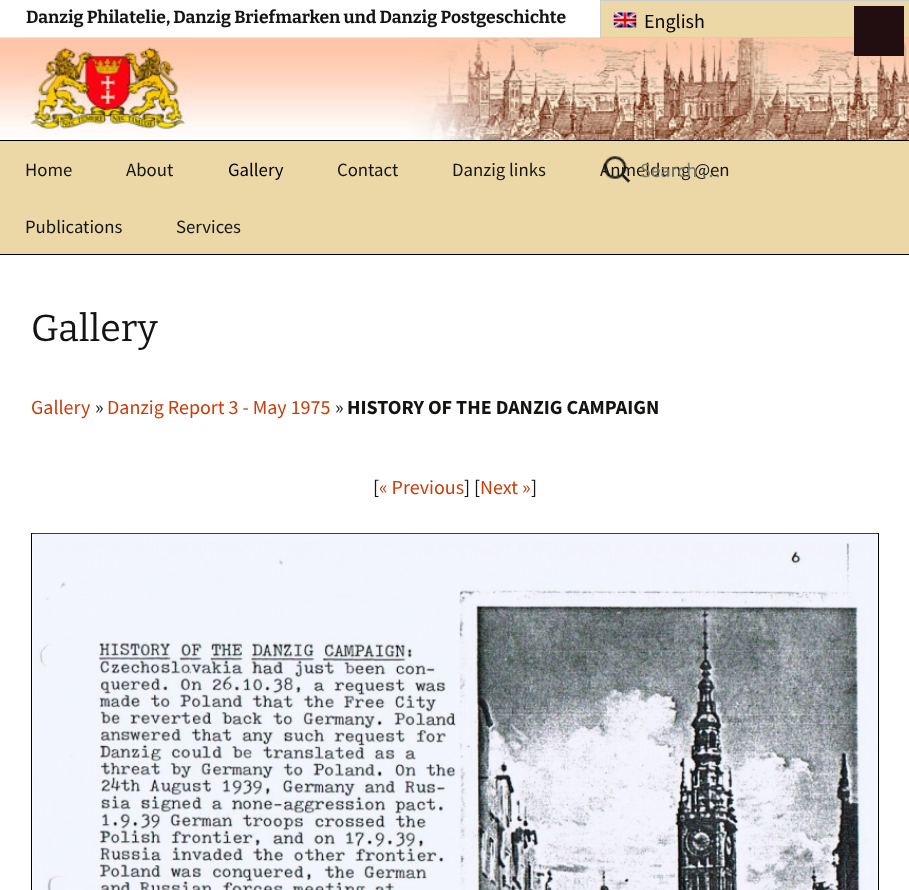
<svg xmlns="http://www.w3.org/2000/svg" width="909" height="890">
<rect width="100%" height="100%" fill="#fff"/>
<rect y="141" width="909" height="113" fill="#ecd7a6"/>
<rect y="254" width="909" height="1" fill="#000"/>
<text x="26" y="23" style="font-family:Bitter;font-size:17.5px;font-weight:bold;fill:#141412">Danzig Philatelie, Danzig Briefmarken und Danzig Postgeschichte</text>
<image x="0" y="37" width="600" height="103" href="media/2.png"/>
<image x="407" y="37" width="502" height="103" href="media/4.png"/>
<rect x="600.5" y="0.5" width="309" height="37" fill="#ecd7a6" stroke="#cdcdcd"/>
<image x="613" y="12" width="24" height="16" href="media/1.png"/>
<text x="644" y="28" style="font-family:Source Sans Pro;font-size:20px;fill:#000">English</text>
<rect y="140" width="909" height="1" fill="#000"/>
<image x="25" y="37" width="168" height="98" href="media/3.png"/>
<text x="25" y="176" style="font-family:Source Sans Pro;font-size:18.75px;fill:#141412">Home</text>
<text x="126" y="176" style="font-family:Source Sans Pro;font-size:18.75px;fill:#141412">About</text>
<text x="228" y="176" style="font-family:Source Sans Pro;font-size:18.75px;fill:#000">Gallery</text>
<text x="337" y="176" style="font-family:Source Sans Pro;font-size:18.75px;fill:#141412">Contact</text>
<text x="452" y="176" style="font-family:Source Sans Pro;font-size:18.75px;fill:#141412">Danzig links</text>
<text x="600" y="176" style="font-family:Source Sans Pro;font-size:18.75px;fill:#141412">Anmeldung @en</text>
<text x="25" y="233" style="font-family:Source Sans Pro;font-size:18.75px;fill:#141412">Publications</text>
<text x="176" y="233" style="font-family:Source Sans Pro;font-size:18.75px;fill:#141412">Services</text>
<image x="603" y="156" width="28" height="27" href="media/5.png"/>
<text x="640" y="177" style="font-family:Source Sans Pro;font-size:20px;fill:#7d7b6d">Search …</text>
<rect x="854" y="6" width="50" height="50" fill="#220e10"/>
<text x="31" y="341" style="font-family:Bitter;font-size:37.5px;fill:#141412">Gallery</text>
<text x="31" y="414" style="font-family:Source Sans Pro;font-size:20px;fill:#ca3c08">Gallery</text>
<text x="95" y="414" style="font-family:Source Sans Pro;font-size:20px;fill:#141412">»</text>
<text x="107" y="414" style="font-family:Source Sans Pro;font-size:20px;fill:#ca3c08">Danzig Report 3 - May 1975</text>
<text x="335" y="414" style="font-family:Source Sans Pro;font-size:20px;fill:#141412">»</text>
<text x="347" y="414" style="font-family:Source Sans Pro;font-size:20px;font-weight:bold;fill:#141412">HISTORY OF THE DANZIG CAMPAIGN</text>
<text x="373" y="494" style="font-family:Source Sans Pro;font-size:20px;fill:#141412">[</text>
<text x="379" y="494" style="font-family:Source Sans Pro;font-size:20px;fill:#ca3c08">« Previous</text>
<text x="464" y="494" style="font-family:Source Sans Pro;font-size:20px;fill:#141412">] [</text>
<text x="480" y="494" style="font-family:Source Sans Pro;font-size:20px;fill:#ca3c08">Next »</text>
<text x="531" y="494" style="font-family:Source Sans Pro;font-size:20px;fill:#141412">]</text>
<rect x="31.5" y="533.5" width="847" height="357" fill="none" stroke="#000"/>
<image x="32" y="533" width="846" height="357" href="media/6.png"/>
</svg>
